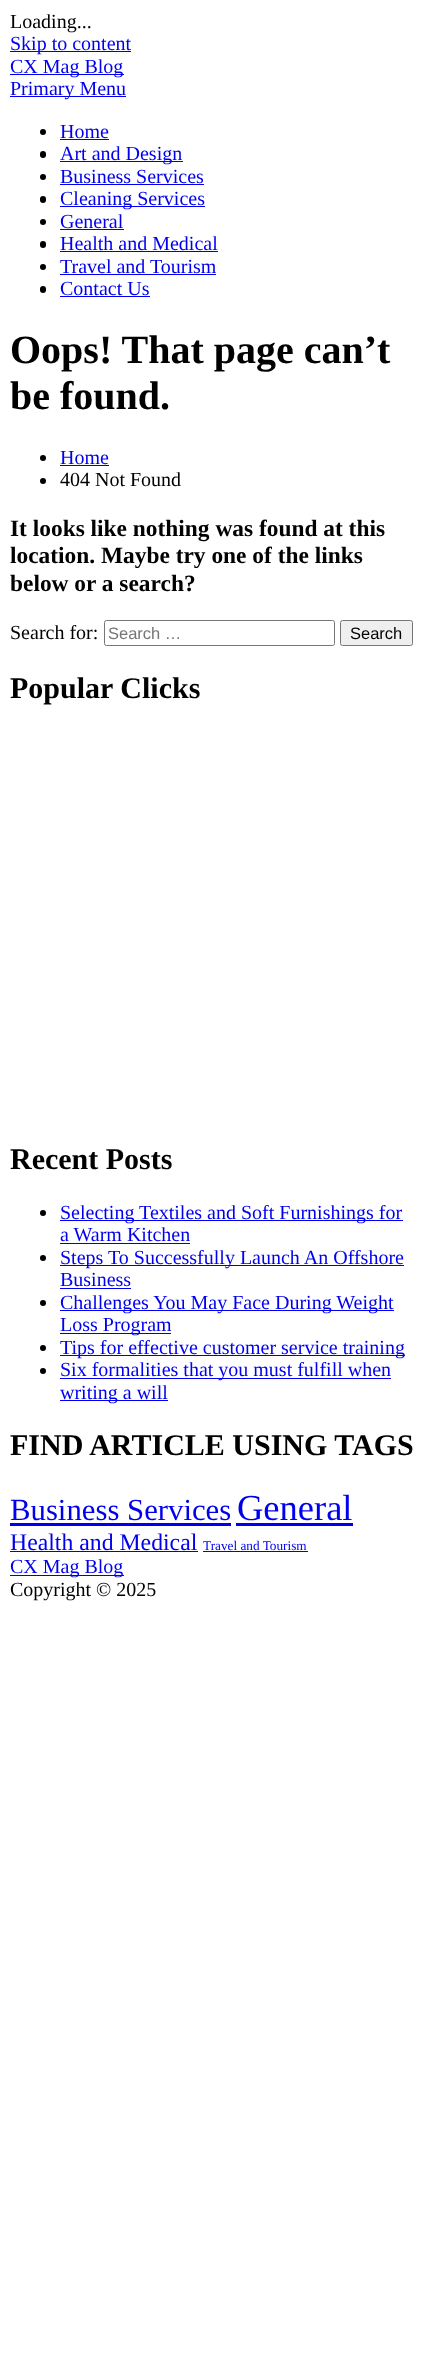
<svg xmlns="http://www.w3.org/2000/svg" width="424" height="2371">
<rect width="100%" height="100%" fill="#fff"/>
<text x="10" y="28" style="font-family:Liberation Serif;font-size:20px;fill:#000">Loading...</text>
<rect x="10" y="51" width="121" height="1" fill="#00e"/>
<text x="10" y="50" style="font-family:Liberation Serif;font-size:20px;fill:#00e">Skip to content</text>
<rect x="10" y="74" width="114" height="1" fill="#00e"/>
<text x="10" y="73" style="font-family:Liberation Serif;font-size:20px;fill:#00e">CX Mag Blog</text>
<rect x="10" y="96" width="116" height="1" fill="#00e"/>
<text x="10" y="95" style="font-family:Liberation Serif;font-size:20px;fill:#00e">Primary Menu</text>
<circle cx="43" cy="132" r="3" fill="#000"/>
<text x="60" y="138" style="font-family:Liberation Serif;font-size:20px;fill:#00e">Home</text>
<rect x="60" y="139" width="49" height="1" fill="#00e"/>
<rect x="40" y="151" width="6" height="7" rx="3" fill="#000"/>
<rect x="60" y="161" width="123" height="1" fill="#00e"/>
<text x="60" y="160" style="font-family:Liberation Serif;font-size:20px;fill:#00e">Art and Design</text>
<circle cx="43" cy="177" r="3" fill="#000"/>
<text x="60" y="183" style="font-family:Liberation Serif;font-size:20px;fill:#00e">Business Services</text>
<rect x="60" y="184" width="144" height="1" fill="#00e"/>
<rect x="40" y="196" width="6" height="7" rx="3" fill="#000"/>
<rect x="60" y="206" width="145" height="1" fill="#00e"/>
<text x="60" y="205" style="font-family:Liberation Serif;font-size:20px;fill:#00e">Cleaning Services</text>
<circle cx="43" cy="222" r="3" fill="#000"/>
<text x="60" y="228" style="font-family:Liberation Serif;font-size:20px;fill:#00e">General</text>
<rect x="60" y="229" width="64" height="1" fill="#00e"/>
<rect x="40" y="241" width="6" height="7" rx="3" fill="#000"/>
<text x="60" y="250" style="font-family:Liberation Serif;font-size:20px;fill:#00e">Health and Medical</text>
<rect x="60" y="251" width="158" height="1" fill="#00e"/>
<circle cx="43" cy="267" r="3" fill="#000"/>
<text x="60" y="273" style="font-family:Liberation Serif;font-size:20px;fill:#00e">Travel and Tourism</text>
<rect x="60" y="274" width="156" height="1" fill="#00e"/>
<rect x="40" y="286" width="6" height="7" rx="3" fill="#000"/>
<text x="60" y="295" style="font-family:Liberation Serif;font-size:20px;fill:#00e">Contact Us</text>
<rect x="60" y="296" width="90" height="1" fill="#00e"/>
<text x="10" y="363" style="font-family:Liberation Serif;font-size:40px;font-weight:bold;fill:#000">Oops! That page can’t</text>
<text x="10" y="409" style="font-family:Liberation Serif;font-size:40px;font-weight:bold;fill:#000">be found.</text>
<circle cx="43" cy="458" r="3" fill="#000"/>
<text x="60" y="464" style="font-family:Liberation Serif;font-size:20px;fill:#00e">Home</text>
<rect x="60" y="465" width="49" height="1" fill="#00e"/>
<circle cx="43" cy="481" r="3" fill="#000"/>
<text x="60" y="486" style="font-family:Liberation Serif;font-size:20px;fill:#000">404 Not Found</text>
<text x="10" y="536" style="font-family:Liberation Serif;font-size:23.4px;font-weight:bold;fill:#000">It looks like nothing was found at this</text>
<text x="10" y="563" style="font-family:Liberation Serif;font-size:23.4px;font-weight:bold;fill:#000">location. Maybe try one of the links</text>
<text x="10" y="591" style="font-family:Liberation Serif;font-size:23.4px;font-weight:bold;fill:#000">below or a search?</text>
<text x="10" y="639" style="font-family:Liberation Serif;font-size:20px;fill:#000">Search for:</text>
<rect x="104.5" y="620.5" width="230" height="25" rx="2" fill="none" stroke="#767676"/>
<text x="108" y="639" style="font-family:Liberation Sans;font-size:16.5px;fill:#757575">Search …</text>
<rect x="340.5" y="620.5" width="72" height="25" rx="2" fill="#efefef" stroke="#767676"/>
<text x="350" y="639" style="font-family:Liberation Sans;font-size:16.5px;fill:#000">Search</text>
<text x="10" y="698" style="font-family:Liberation Serif;font-size:30px;font-weight:bold;fill:#000">Popular Clicks</text>
<text x="10" y="1169" style="font-family:Liberation Serif;font-size:30px;font-weight:bold;fill:#000">Recent Posts</text>
<circle cx="43" cy="1213" r="3" fill="#000"/>
<rect x="60" y="1220" width="343" height="1" fill="#00e"/>
<text x="60" y="1219" style="font-family:Liberation Serif;font-size:20px;fill:#00e">Selecting Textiles and Soft Furnishings for</text>
<text x="60" y="1241" style="font-family:Liberation Serif;font-size:20px;fill:#00e">a Warm Kitchen</text>
<rect x="60" y="1243" width="130" height="1" fill="#00e"/>
<circle cx="43" cy="1258" r="3" fill="#000"/>
<rect x="60" y="1265" width="344" height="1" fill="#00e"/>
<text x="60" y="1264" style="font-family:Liberation Serif;font-size:20px;fill:#00e">Steps To Successfully Launch An Offshore</text>
<text x="60" y="1286" style="font-family:Liberation Serif;font-size:20px;fill:#00e">Business</text>
<rect x="60" y="1288" width="71" height="1" fill="#00e"/>
<circle cx="43" cy="1303" r="3" fill="#000"/>
<rect x="60" y="1310" width="334" height="1" fill="#00e"/>
<text x="60" y="1309" style="font-family:Liberation Serif;font-size:20px;fill:#00e">Challenges You May Face During Weight</text>
<rect x="60" y="1333" width="111" height="1" fill="#00e"/>
<text x="60" y="1331" style="font-family:Liberation Serif;font-size:20px;fill:#00e">Loss Program</text>
<circle cx="43" cy="1348" r="3" fill="#000"/>
<rect x="60" y="1355" width="345" height="1" fill="#00e"/>
<text x="60" y="1354" style="font-family:Liberation Serif;font-size:20px;fill:#00e">Tips for effective customer service training</text>
<circle cx="43" cy="1371" r="3" fill="#000"/>
<rect x="60" y="1378" width="331" height="1" fill="#00e"/>
<text x="60" y="1376" style="font-family:Liberation Serif;font-size:20px;fill:#00e">Six formalities that you must fulfill when</text>
<rect x="60" y="1400" width="108" height="1" fill="#00e"/>
<text x="60" y="1399" style="font-family:Liberation Serif;font-size:20px;fill:#00e">writing a will</text>
<text x="10" y="1455" style="font-family:Liberation Serif;font-size:30px;font-weight:bold;fill:#000">FIND ARTICLE USING TAGS</text>
<text x="10" y="1520" style="font-family:Liberation Serif;font-size:30.75px;fill:#00e">Business Services</text>
<rect x="10" y="1523" width="221" height="3" fill="#00e"/>
<text x="237" y="1520" style="font-family:Liberation Serif;font-size:36.5px;fill:#00e">General</text>
<rect x="236" y="1523" width="117" height="3" fill="#00e"/>
<text x="10" y="1550" style="font-family:Liberation Serif;font-size:23.75px;fill:#00e">Health and Medical</text>
<rect x="10" y="1551" width="188" height="1" fill="#00e"/>
<text x="203" y="1550" style="font-family:Liberation Serif;font-size:13.25px;fill:#00e">Travel and Tourism</text>
<rect x="203" y="1551" width="105" height="1" fill="#00e"/>
<rect x="10" y="1575" width="114" height="1" fill="#00e"/>
<text x="10" y="1573" style="font-family:Liberation Serif;font-size:20px;fill:#00e">CX Mag Blog</text>
<text x="10" y="1596" style="font-family:Liberation Serif;font-size:20px;fill:#000">Copyright © 2025</text>
</svg>
